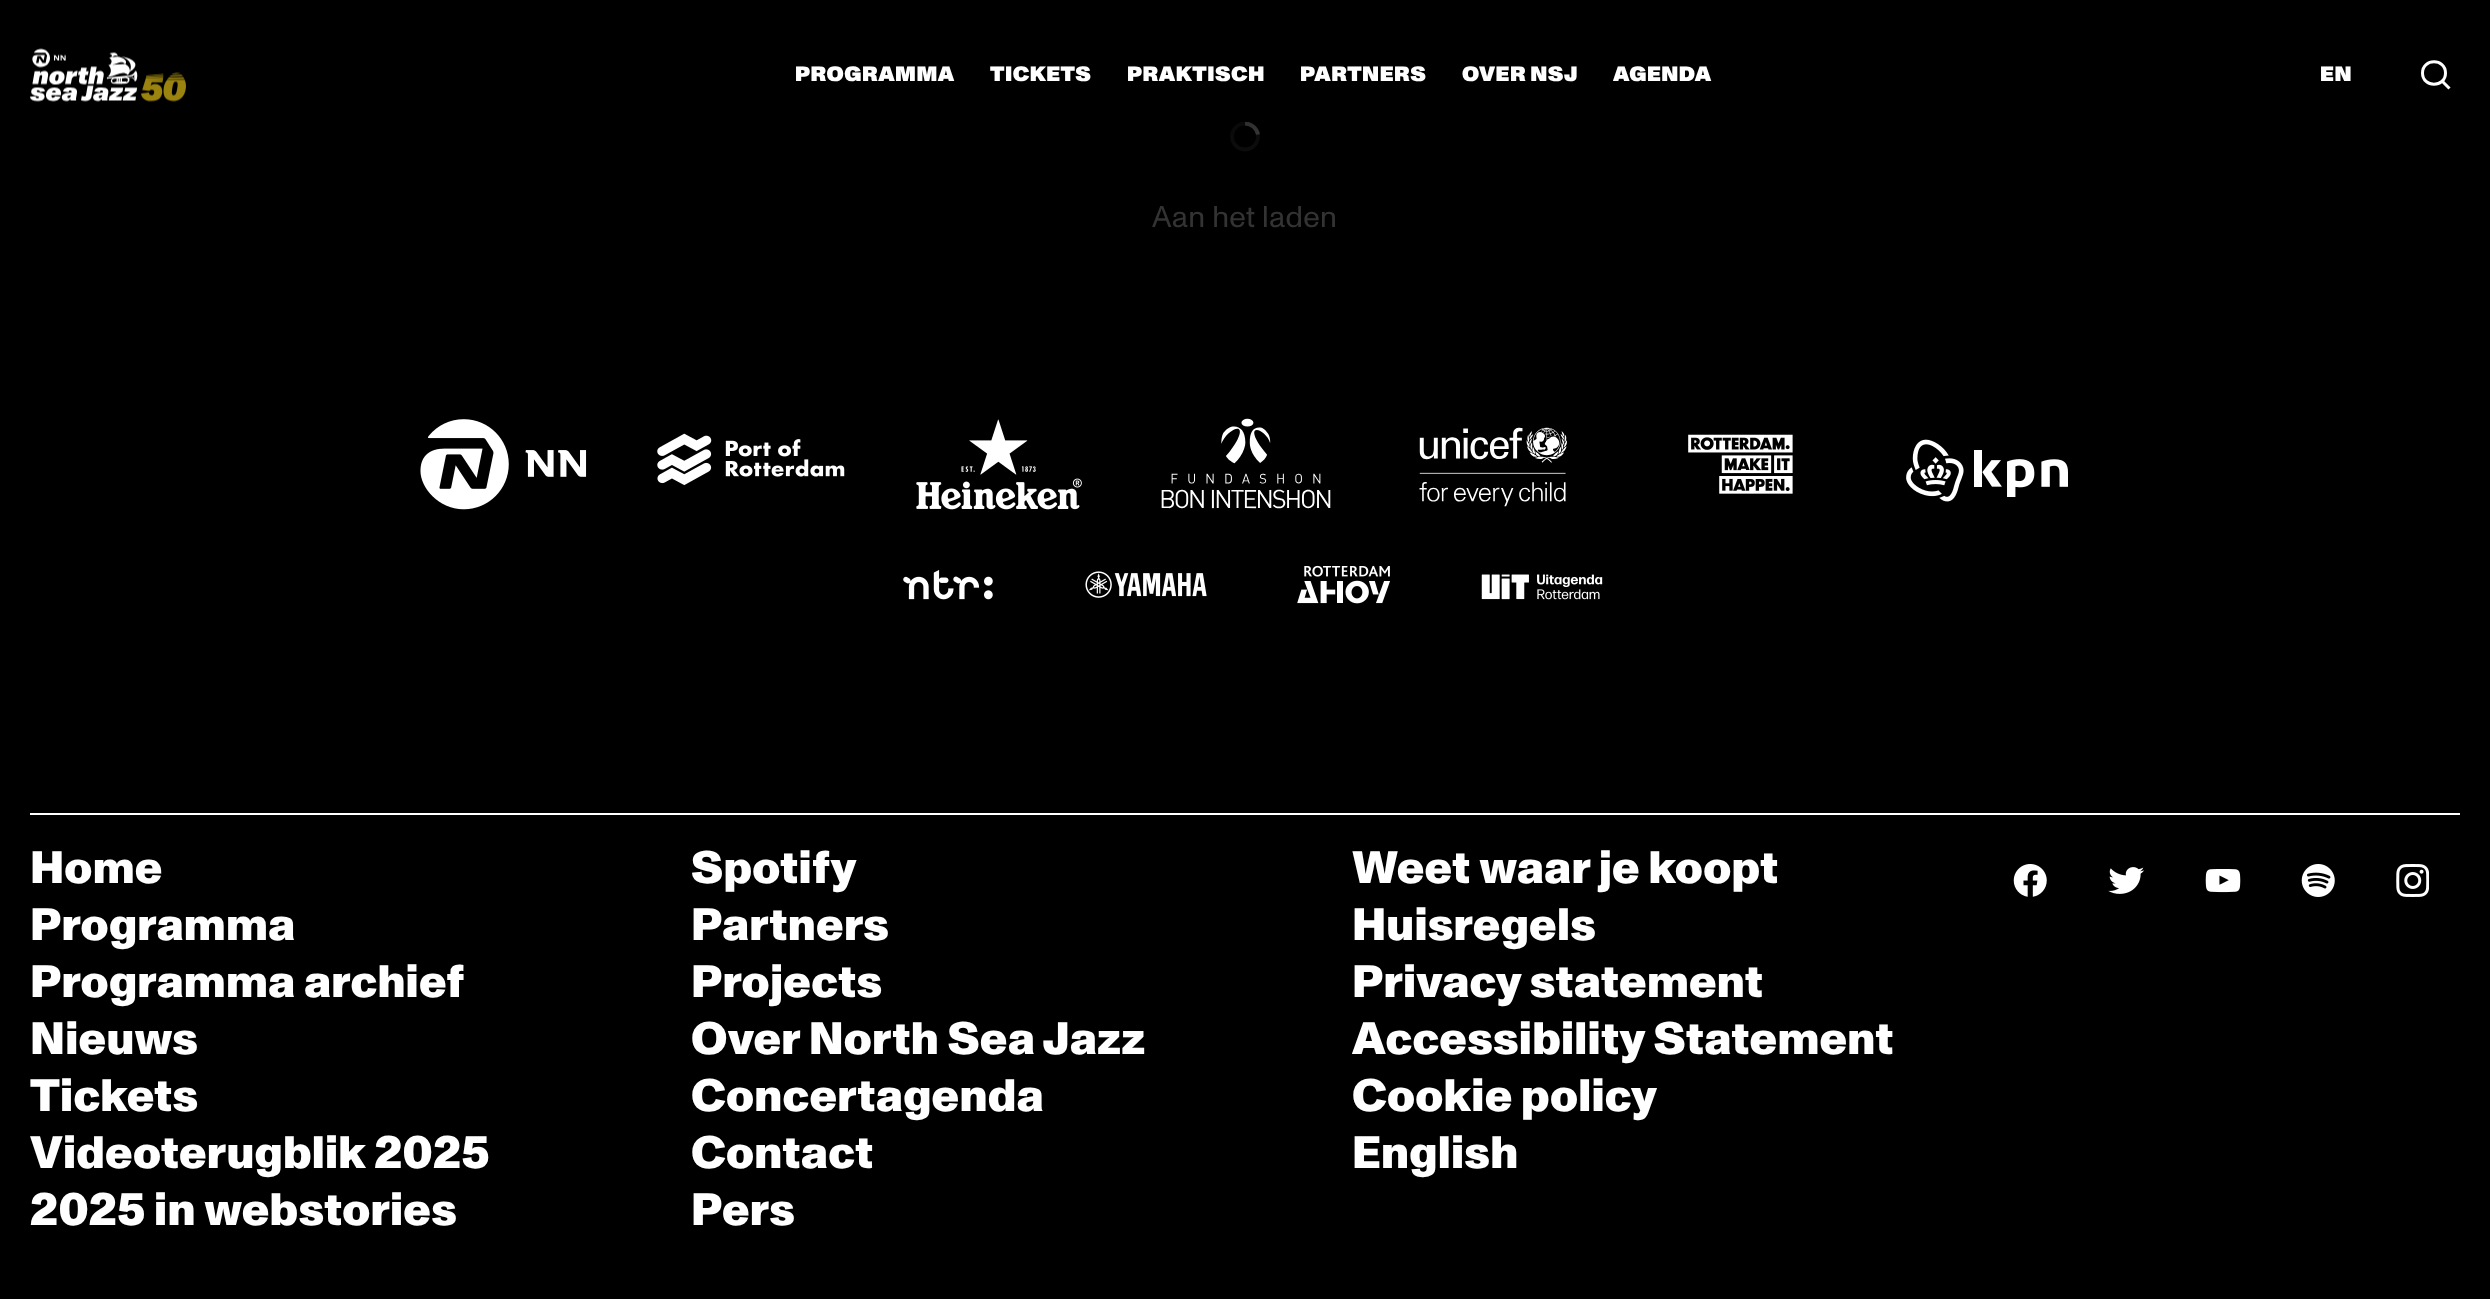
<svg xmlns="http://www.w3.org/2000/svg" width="2490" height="1299">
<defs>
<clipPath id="clip1"><rect x="1230" y="122" width="30" height="30"/></clipPath>
<linearGradient id="g1" gradientUnits="userSpaceOnUse" x1="1245" y1="0" x2="1245" y2="1299"><stop offset="0.03" stop-color="#000"/><stop offset="0.17" stop-color="#000" stop-opacity="0"/></linearGradient>
</defs>
<rect width="100%" height="100%" fill="#000"/>
<image x="30" y="48" width="156" height="54" href="media/1.png"/>
<text x="795" y="81" style="font-family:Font;font-size:20.75px;font-weight:900;letter-spacing:0.5px;fill:#fff">PROGRAMMA</text>
<text x="990" y="81" style="font-family:Font;font-size:20.75px;font-weight:900;letter-spacing:0.5px;fill:#fff">TICKETS</text>
<text x="1127" y="81" style="font-family:Font;font-size:20.75px;font-weight:900;letter-spacing:0.5px;fill:#fff">PRAKTISCH</text>
<text x="1300" y="81" style="font-family:Font;font-size:20.75px;font-weight:900;letter-spacing:0.5px;fill:#fff">PARTNERS</text>
<text x="1462" y="81" style="font-family:Font;font-size:20.75px;font-weight:900;letter-spacing:0.5px;fill:#fff">OVER NSJ</text>
<text x="1613" y="81" style="font-family:Font;font-size:20.75px;font-weight:900;letter-spacing:0.5px;fill:#fff">AGENDA</text>
<text x="2320" y="81" style="font-family:Font;font-size:20.75px;font-weight:900;letter-spacing:0.5px;fill:#fff">EN</text>
<path d="M2441 80l8.5 8.5m-4-15.5c0 15-23 15-23 0c0-15 23-15 23 0z" fill="none" stroke="#fff" stroke-width="3"/>
<g clip-path="url(#clip1)">
<circle cx="1245" cy="136.5" r="13" fill="none" stroke="#141414" stroke-width="3.8"/>
<path d="M1245 123.5c6.5 0 12 5 13 11" fill="none" stroke="#666" stroke-width="3.8"/>
</g>
<rect x="1159" y="122" width="142" height="89" fill="url(#g1)"/>
<text x="1152" y="227" style="font-family:Font;font-size:30px;letter-spacing:0.25px;fill:#333">Aan het laden</text>
<image x="420" y="419" width="167" height="91" href="media/2.png"/>
<image x="657" y="433" width="188" height="53" href="media/3.png"/>
<image x="916" y="419" width="166" height="91" href="media/4.png"/>
<image x="1161" y="418" width="170" height="91" href="media/5.png"/>
<image x="1419" y="427" width="148" height="80" href="media/6.png"/>
<image x="1688" y="434" width="105" height="60" href="media/7.png"/>
<image x="1906" y="439" width="162" height="63" href="media/8.png"/>
<image x="903" y="570" width="90" height="30" href="media/9.png"/>
<image x="1085" y="571" width="122" height="27" href="media/10.png"/>
<image x="1297" y="565" width="93" height="39" href="media/11.png"/>
<image x="1481" y="574" width="122" height="26" href="media/12.png"/>
<rect x="30" y="813" width="2430" height="2" fill="#fff"/>
<text x="30" y="883" style="font-family:Font;font-size:45.4px;font-weight:800;letter-spacing:0.25px;fill:#fff">Home</text>
<text x="691" y="883" style="font-family:Font;font-size:45.4px;font-weight:800;letter-spacing:0.25px;fill:#fff">Spotify</text>
<text x="1352" y="883" style="font-family:Font;font-size:45.4px;font-weight:800;letter-spacing:0.25px;fill:#fff">Weet waar je koopt</text>
<text x="30" y="940" style="font-family:Font;font-size:45.4px;font-weight:800;letter-spacing:0.25px;fill:#fff">Programma</text>
<text x="691" y="940" style="font-family:Font;font-size:45.4px;font-weight:800;letter-spacing:0.25px;fill:#fff">Partners</text>
<text x="1352" y="940" style="font-family:Font;font-size:45.4px;font-weight:800;letter-spacing:0.25px;fill:#fff">Huisregels</text>
<text x="30" y="997" style="font-family:Font;font-size:45.4px;font-weight:800;letter-spacing:0.25px;fill:#fff">Programma archief</text>
<text x="691" y="997" style="font-family:Font;font-size:45.4px;font-weight:800;letter-spacing:0.25px;fill:#fff">Projects</text>
<text x="1352" y="997" style="font-family:Font;font-size:45.4px;font-weight:800;letter-spacing:0.25px;fill:#fff">Privacy statement</text>
<text x="30" y="1054" style="font-family:Font;font-size:45.4px;font-weight:800;letter-spacing:0.25px;fill:#fff">Nieuws</text>
<text x="691" y="1054" style="font-family:Font;font-size:45.4px;font-weight:800;letter-spacing:0.25px;fill:#fff">Over North Sea Jazz</text>
<text x="1352" y="1054" style="font-family:Font;font-size:45.4px;font-weight:800;letter-spacing:0.25px;fill:#fff">Accessibility Statement</text>
<text x="30" y="1111" style="font-family:Font;font-size:45.4px;font-weight:800;letter-spacing:0.25px;fill:#fff">Tickets</text>
<text x="691" y="1111" style="font-family:Font;font-size:45.4px;font-weight:800;letter-spacing:0.25px;fill:#fff">Concertagenda</text>
<text x="1352" y="1111" style="font-family:Font;font-size:45.4px;font-weight:800;letter-spacing:0.25px;fill:#fff">Cookie policy</text>
<text x="30" y="1168" style="font-family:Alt;font-size:45.4px;font-weight:800;letter-spacing:0.25px;fill:#fff">Videoterugblik 2025</text>
<text x="691" y="1168" style="font-family:Font;font-size:45.4px;font-weight:800;letter-spacing:0.25px;fill:#fff">Contact</text>
<text x="1352" y="1168" style="font-family:Font;font-size:45.4px;font-weight:800;letter-spacing:0.25px;fill:#fff">English</text>
<text x="30" y="1225" style="font-family:Alt;font-size:45.4px;font-weight:800;letter-spacing:0.25px;fill:#fff">2025 in webstories</text>
<text x="691" y="1225" style="font-family:Font;font-size:45.4px;font-weight:800;letter-spacing:0.25px;fill:#fff">Pers</text>
<image x="2013" y="864" width="34" height="33" href="media/13.png"/>
<image x="2108" y="867" width="37" height="27" href="media/14.png"/>
<image x="2205" y="869" width="36" height="24" href="media/15.png"/>
<image x="2301" y="864" width="34" height="33" href="media/16.png"/>
<image x="2396" y="864" width="33" height="33" href="media/17.png"/>
</svg>
